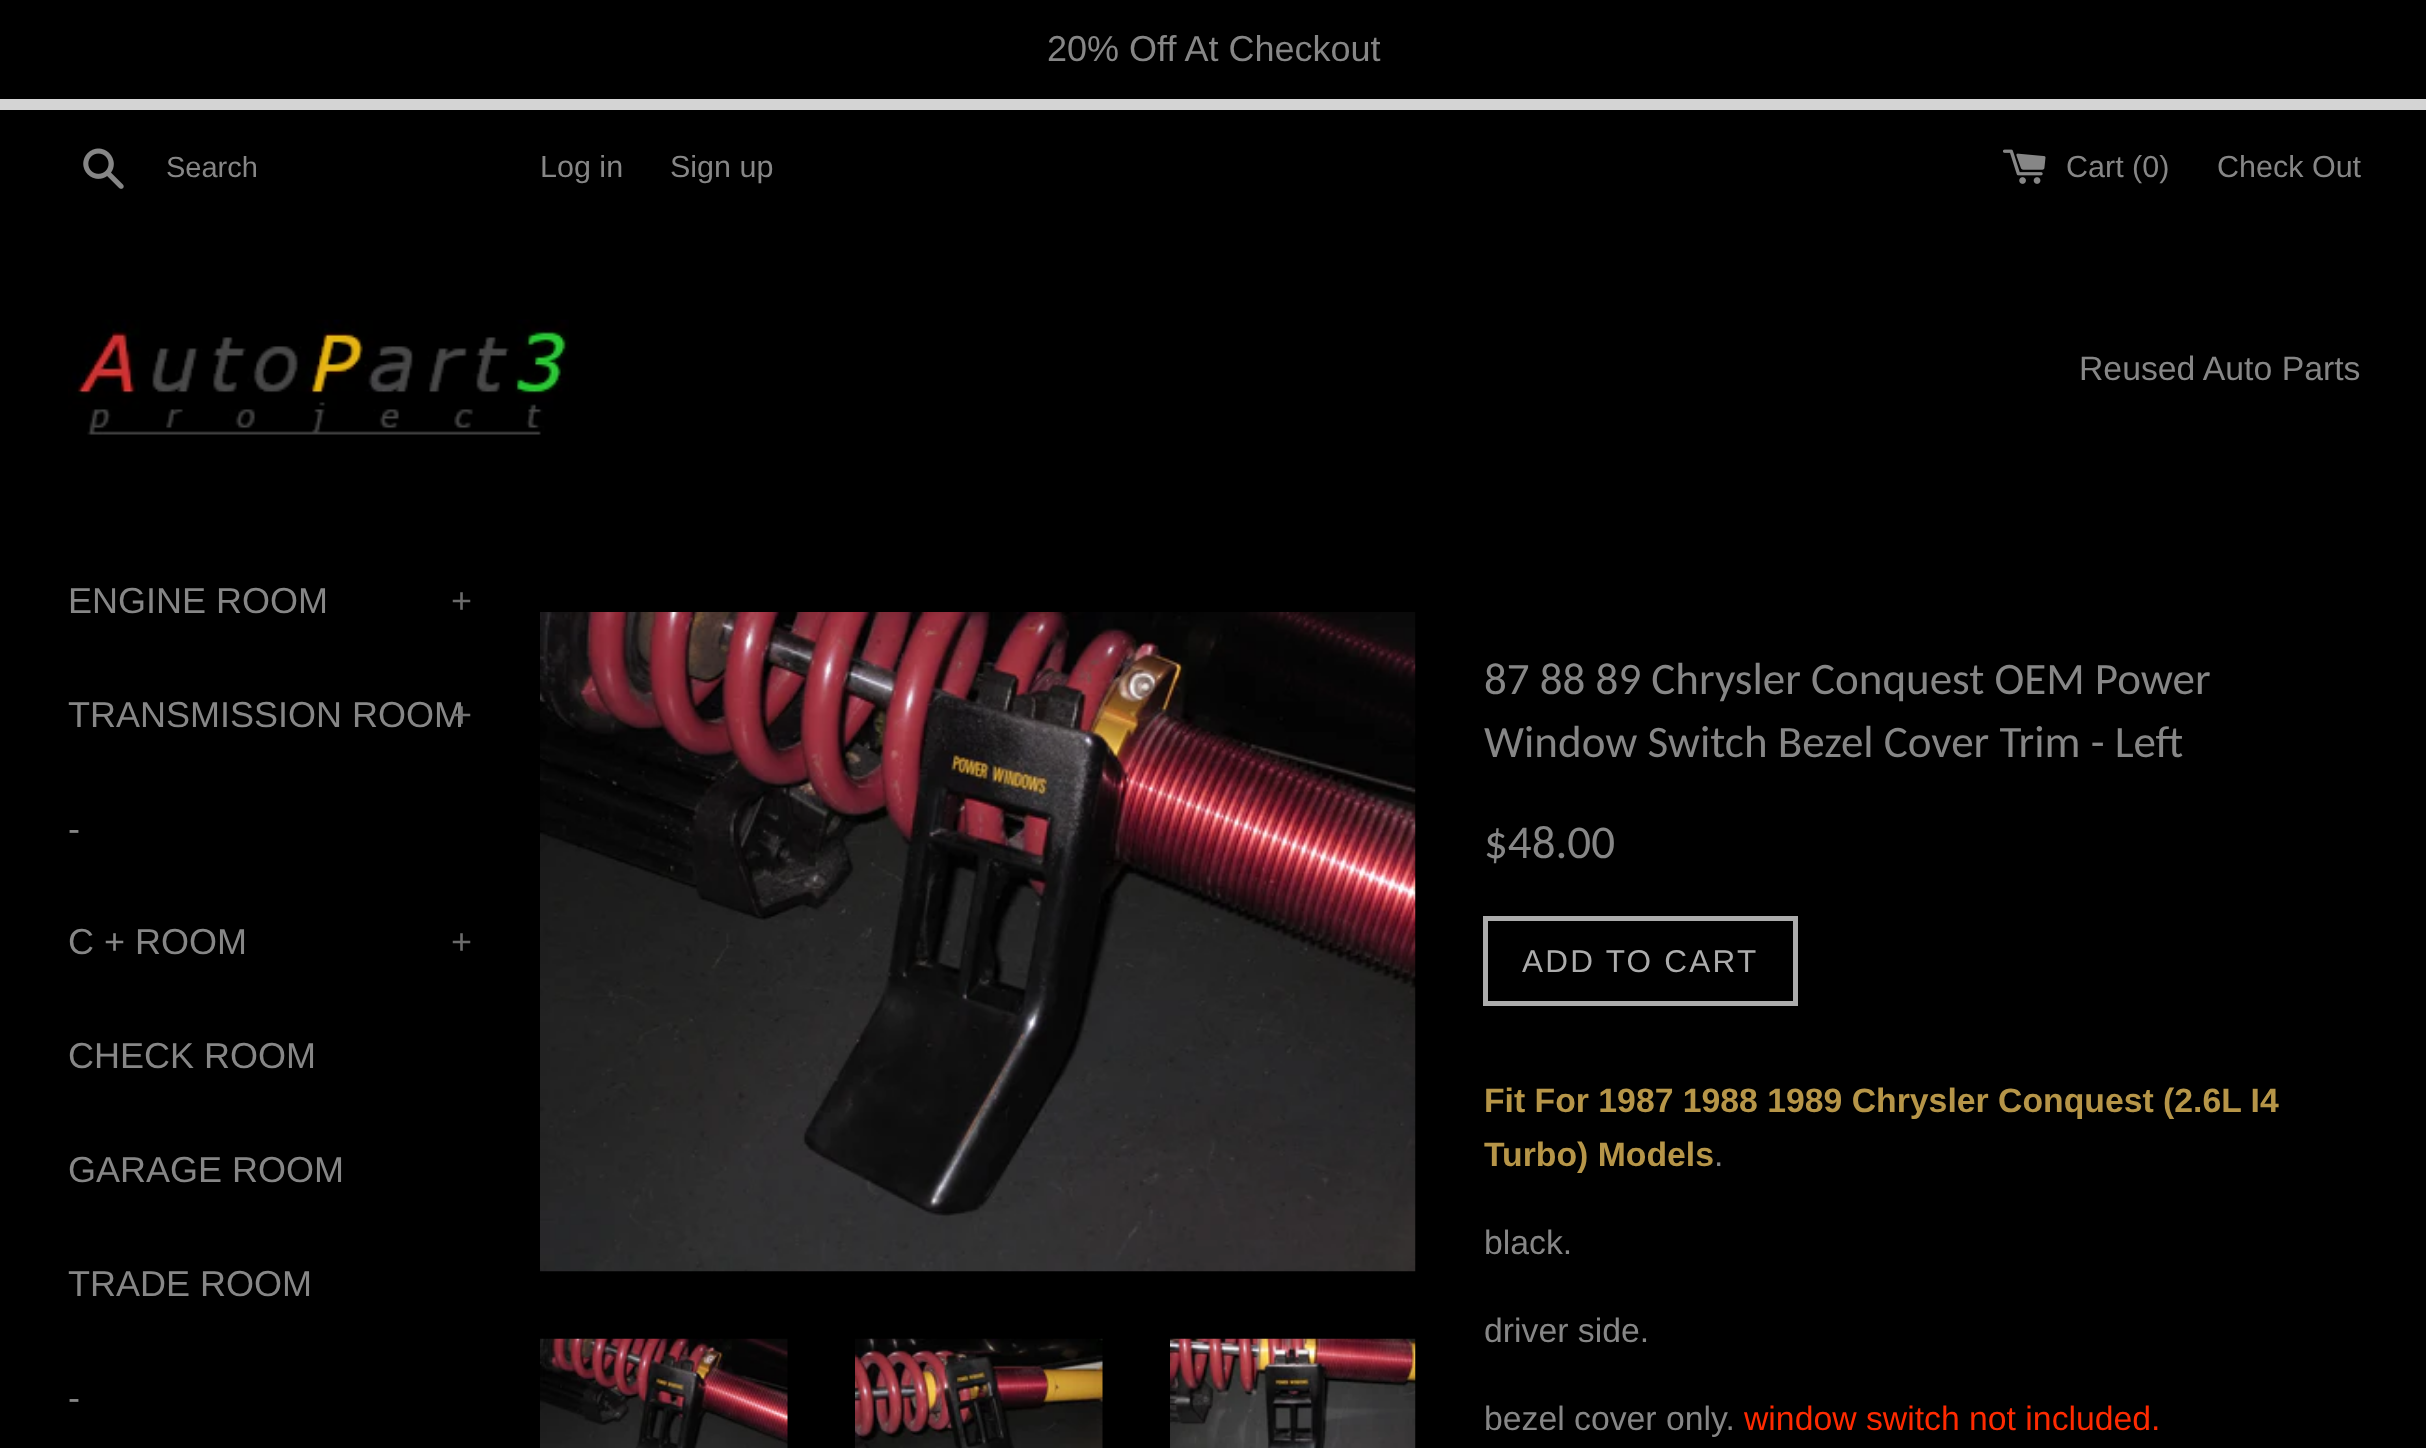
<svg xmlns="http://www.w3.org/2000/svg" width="2426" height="1448">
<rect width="100%" height="100%" fill="#000"/>
<text x="1047" y="61" style="font-family:Liberation Sans;font-size:36px;fill:#868686">20% Off At Checkout</text>
<rect y="99" width="2426" height="11" fill="#d4d4d4"/>
<image x="83" y="148" width="41" height="41" href="media/1.png"/>
<text x="166" y="177" style="font-family:Liberation Sans;font-size:29px;fill:#868686">Search</text>
<text x="540" y="177" style="font-family:Liberation Sans;font-size:30.5px;fill:#868686">Log in</text>
<text x="670" y="177" style="font-family:Liberation Sans;font-size:30.5px;fill:#868686">Sign up</text>
<image x="2003" y="149" width="43" height="35" href="media/2.png"/>
<text x="2066" y="177" style="font-family:Liberation Sans;font-size:30.5px;fill:#868686">Cart (0)</text>
<text x="2217" y="177" style="font-family:Liberation Sans;font-size:30.5px;fill:#868686">Check Out</text>
<image x="68" y="319" width="501" height="116" href="media/3.png"/>
<text x="2079" y="380" style="font-family:Liberation Sans;font-size:33.75px;fill:#868686">Reused Auto Parts</text>
<text x="68" y="613" style="font-family:Liberation Sans;font-size:36px;fill:#868686">ENGINE ROOM</text>
<text x="451" y="613" style="font-family:Liberation Sans;font-size:36px;fill:#6b6b6b">+</text>
<text x="68" y="727" style="font-family:Liberation Sans;font-size:36px;fill:#868686">TRANSMISSION ROOM</text>
<text x="451" y="727" style="font-family:Liberation Sans;font-size:36px;fill:#727272">+</text>
<text x="68" y="841" style="font-family:Liberation Sans;font-size:36px;fill:#868686">-</text>
<text x="68" y="954" style="font-family:Liberation Sans;font-size:36px;fill:#868686">C + ROOM</text>
<text x="451" y="954" style="font-family:Liberation Sans;font-size:36px;fill:#6b6b6b">+</text>
<text x="68" y="1068" style="font-family:Liberation Sans;font-size:36px;fill:#868686">CHECK ROOM</text>
<text x="68" y="1182" style="font-family:Liberation Sans;font-size:36px;fill:#868686">GARAGE ROOM</text>
<text x="68" y="1296" style="font-family:Liberation Sans;font-size:36px;fill:#868686">TRADE ROOM</text>
<text x="68" y="1410" style="font-family:Liberation Sans;font-size:36px;fill:#868686">-</text>
<image x="540" y="612" width="876" height="660" href="media/4.png"/>
<image x="540" y="1338" width="248" height="110" href="media/5.png"/>
<image x="855" y="1338" width="248" height="110" href="media/6.png"/>
<image x="1170" y="1338" width="246" height="110" href="media/7.png"/>
<text x="1484" y="694" style="font-family:Carlito;font-size:45px;fill:#868686">87 88 89 Chrysler Conquest OEM Power</text>
<text x="1484" y="757" style="font-family:Carlito;font-size:45px;fill:#868686">Window Switch Bezel Cover Trim - Left</text>
<text x="1484" y="858" style="font-family:Carlito;font-size:47px;fill:#868686">$48.00</text>
<rect x="1485.5" y="918.5" width="310" height="85" fill="none" stroke="#acacac" stroke-width="5"/>
<text x="1522" y="972" style="font-family:Liberation Sans;font-size:31.5px;letter-spacing:2.25px;fill:#acacac">ADD TO CART</text>
<text x="1484" y="1112" style="font-family:Liberation Sans;font-size:33.75px;font-weight:bold;fill:#b69548">Fit For 1987 1988 1989 Chrysler Conquest (2.6L I4</text>
<text x="1484" y="1166" style="font-family:Liberation Sans;font-size:33.75px;font-weight:bold;fill:#b69548">Turbo) Models</text>
<text x="1714" y="1166" style="font-family:Liberation Sans;font-size:33.75px;fill:#868686">.</text>
<text x="1484" y="1254" style="font-family:Liberation Sans;font-size:33.75px;fill:#868686">black.</text>
<text x="1484" y="1342" style="font-family:Liberation Sans;font-size:33.75px;fill:#868686">driver side.</text>
<text x="1484" y="1430" style="font-family:Liberation Sans;font-size:33.75px;fill:#868686">bezel cover only.</text>
<text x="1744" y="1430" style="font-family:Liberation Sans;font-size:33.75px;fill:#ff2a00">window switch not included.</text>
</svg>
